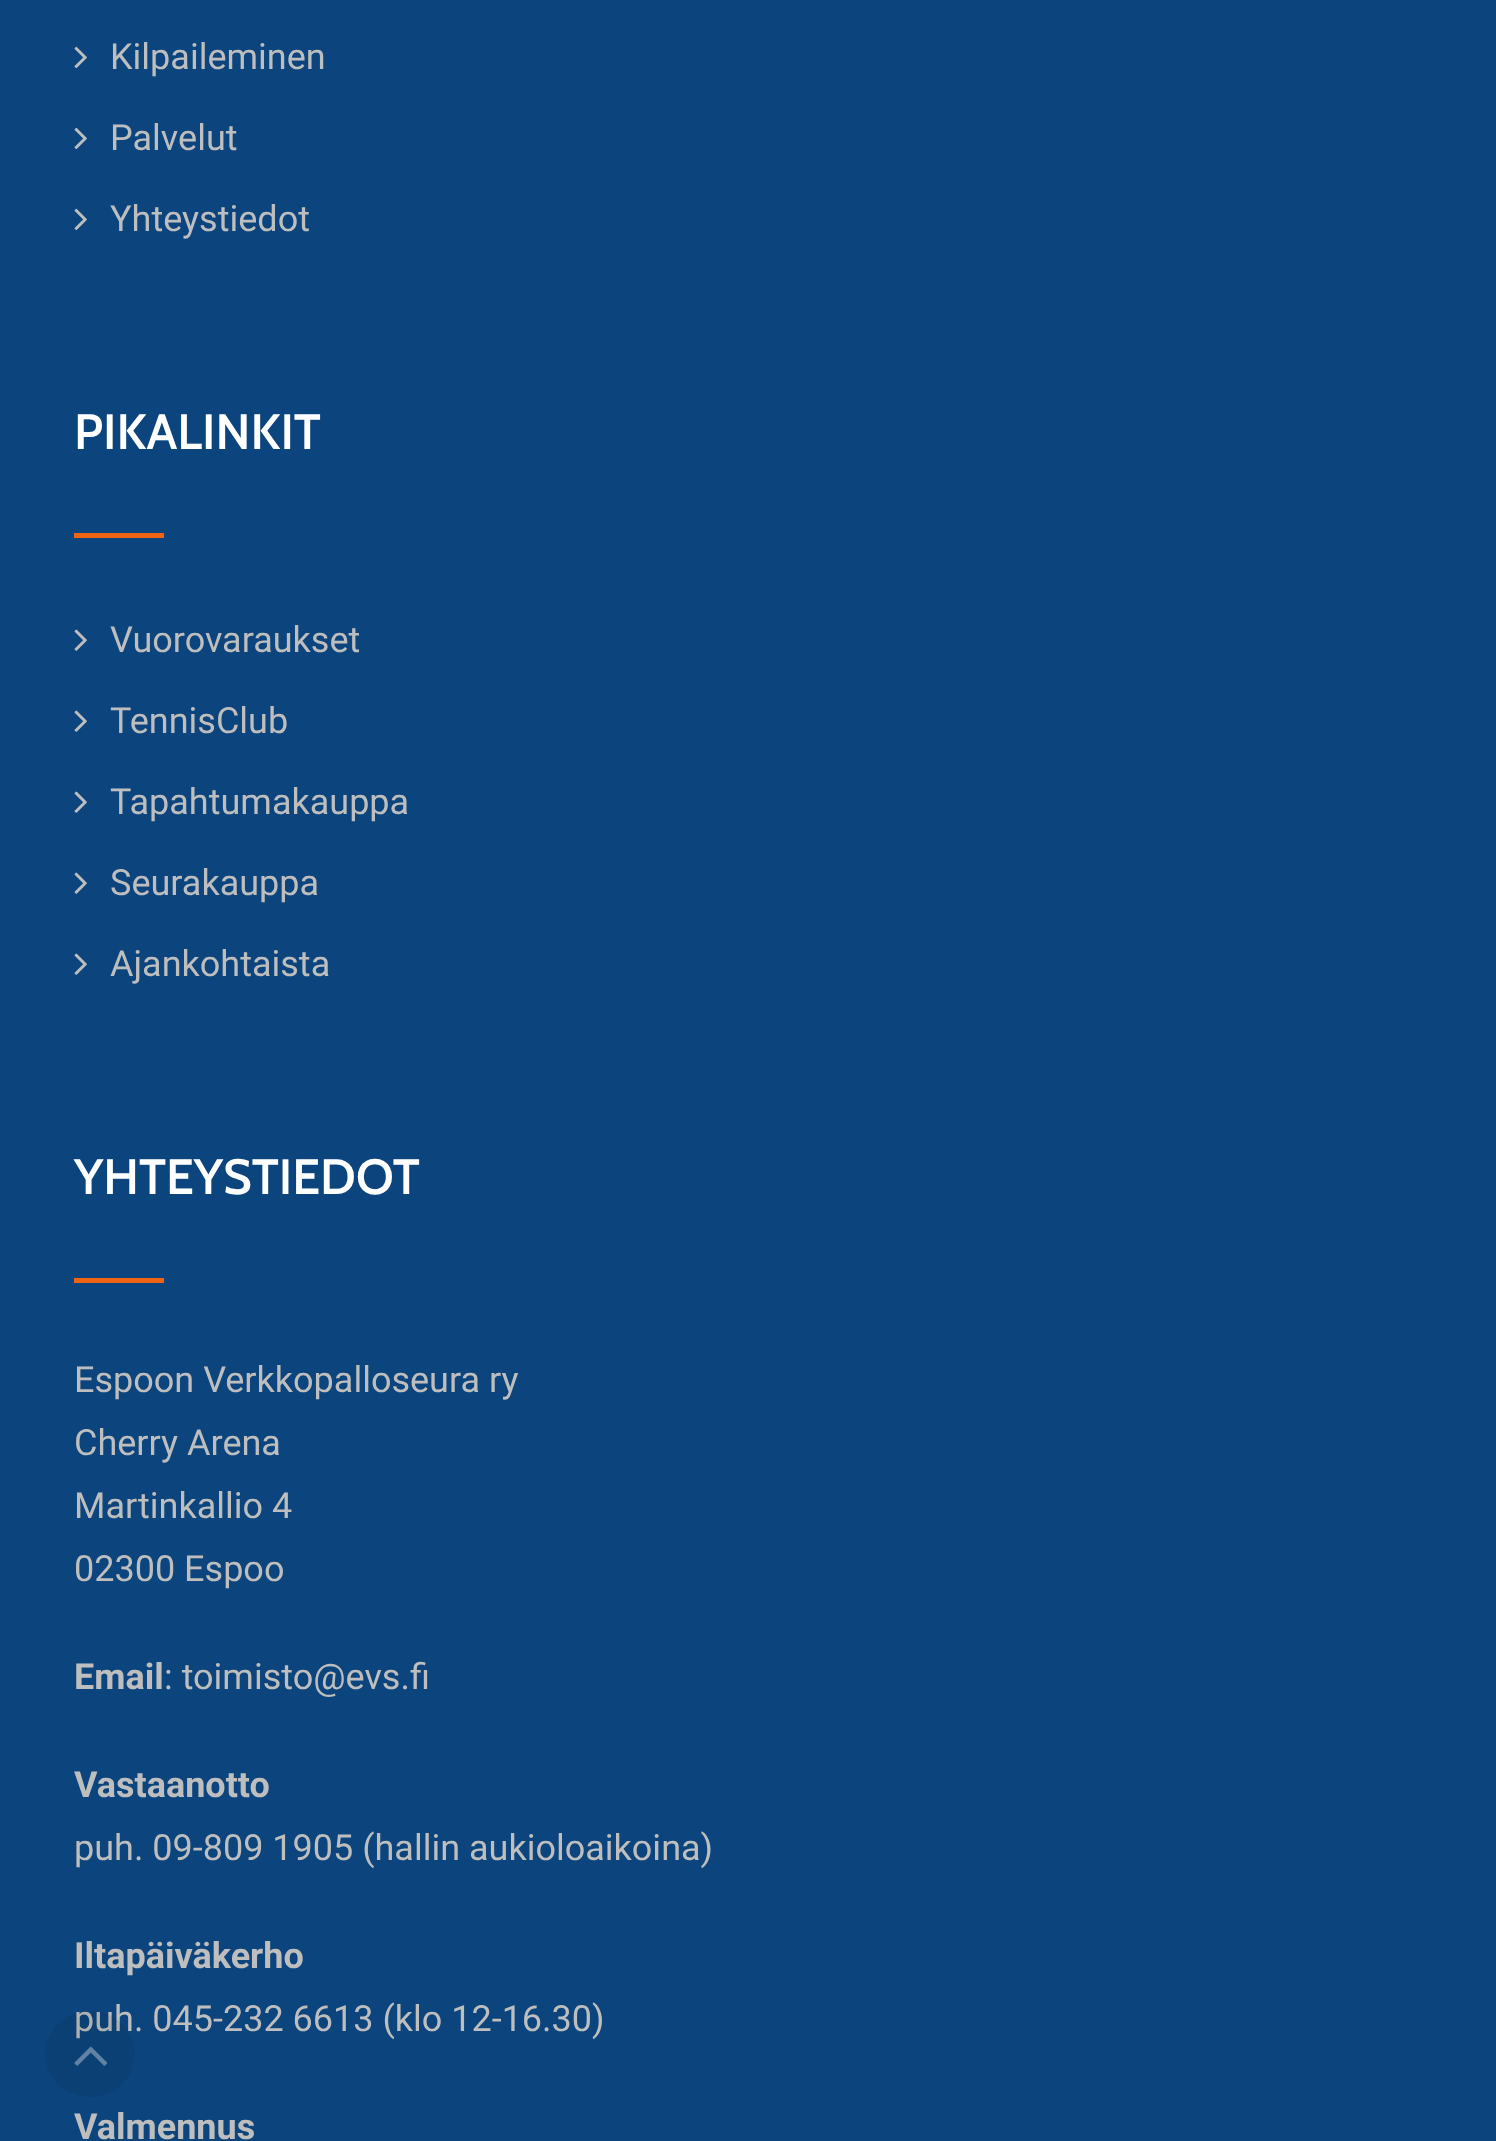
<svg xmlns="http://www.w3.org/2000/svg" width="1496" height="2141">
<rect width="100%" height="100%" fill="#0c457d"/>
<image x="74" y="46" width="13" height="23" href="media/1.png"/>
<text x="110" y="69" style="font-family:Roboto;font-size:36px;fill:#bebebe">Kilpaileminen</text>
<image x="74" y="127" width="13" height="23" href="media/1.png"/>
<text x="110" y="150" style="font-family:Roboto;font-size:36px;fill:#bebebe">Palvelut</text>
<image x="74" y="208" width="13" height="23" href="media/1.png"/>
<text x="110" y="231" style="font-family:Roboto;font-size:36px;fill:#bebebe">Yhteystiedot</text>
<text x="74" y="449" style="font-family:Cabin;font-size:49.5px;font-weight:600;fill:#fff">PIKALINKIT</text>
<rect x="74" y="533" width="90" height="5" fill="#f06312"/>
<image x="74" y="629" width="13" height="22" href="media/2.png"/>
<text x="110" y="652" style="font-family:Roboto;font-size:36px;fill:#bebebe">Vuorovaraukset</text>
<image x="74" y="710" width="13" height="22" href="media/2.png"/>
<text x="110" y="733" style="font-family:Roboto;font-size:36px;fill:#bebebe">TennisClub</text>
<image x="74" y="791" width="13" height="22" href="media/2.png"/>
<text x="110" y="814" style="font-family:Roboto;font-size:36px;fill:#bebebe">Tapahtumakauppa</text>
<image x="74" y="872" width="13" height="22" href="media/2.png"/>
<text x="110" y="895" style="font-family:Roboto;font-size:36px;fill:#bebebe">Seurakauppa</text>
<image x="74" y="953" width="13" height="22" href="media/2.png"/>
<text x="110" y="976" style="font-family:Roboto;font-size:36px;fill:#bebebe">Ajankohtaista</text>
<text x="74" y="1194" style="font-family:Cabin;font-size:49.5px;font-weight:600;fill:#fff">YHTEYSTIEDOT</text>
<rect x="74" y="1278" width="90" height="5" fill="#f06312"/>
<text x="74" y="1392" style="font-family:Roboto;font-size:36px;fill:#bebebe">Espoon Verkkopalloseura ry</text>
<text x="74" y="1455" style="font-family:Roboto;font-size:36px;fill:#bebebe">Cherry Arena</text>
<text x="74" y="1518" style="font-family:Roboto;font-size:36px;fill:#bebebe">Martinkallio 4</text>
<text x="74" y="1581" style="font-family:Roboto;font-size:36px;fill:#bebebe">02300 Espoo</text>
<text x="74" y="1689" style="font-family:Roboto;font-size:36px;font-weight:bold;fill:#bebebe">Email</text>
<text x="164" y="1689" style="font-family:Roboto;font-size:36px;fill:#bebebe">: toimisto@evs.fi</text>
<text x="74" y="1797" style="font-family:Roboto;font-size:36px;font-weight:bold;fill:#bebebe">Vastaanotto</text>
<text x="74" y="1860" style="font-family:Roboto;font-size:36px;fill:#bebebe">puh. 09-809 1905 (hallin aukioloaikoina)</text>
<text x="74" y="1968" style="font-family:Roboto;font-size:36px;font-weight:bold;fill:#bebebe">Iltapäiväkerho</text>
<text x="74" y="2031" style="font-family:Roboto;font-size:36px;fill:#bebebe">puh. 045-232 6613 (klo 12-16.30)</text>
<text x="74" y="2139" style="font-family:Roboto;font-size:36px;font-weight:bold;fill:#bebebe">Valmennus</text>
<ellipse cx="90" cy="2054" rx="45" ry="43" fill="#00000012"/>
<image x="74" y="2046" width="33" height="20" href="media/3.png"/>
</svg>
